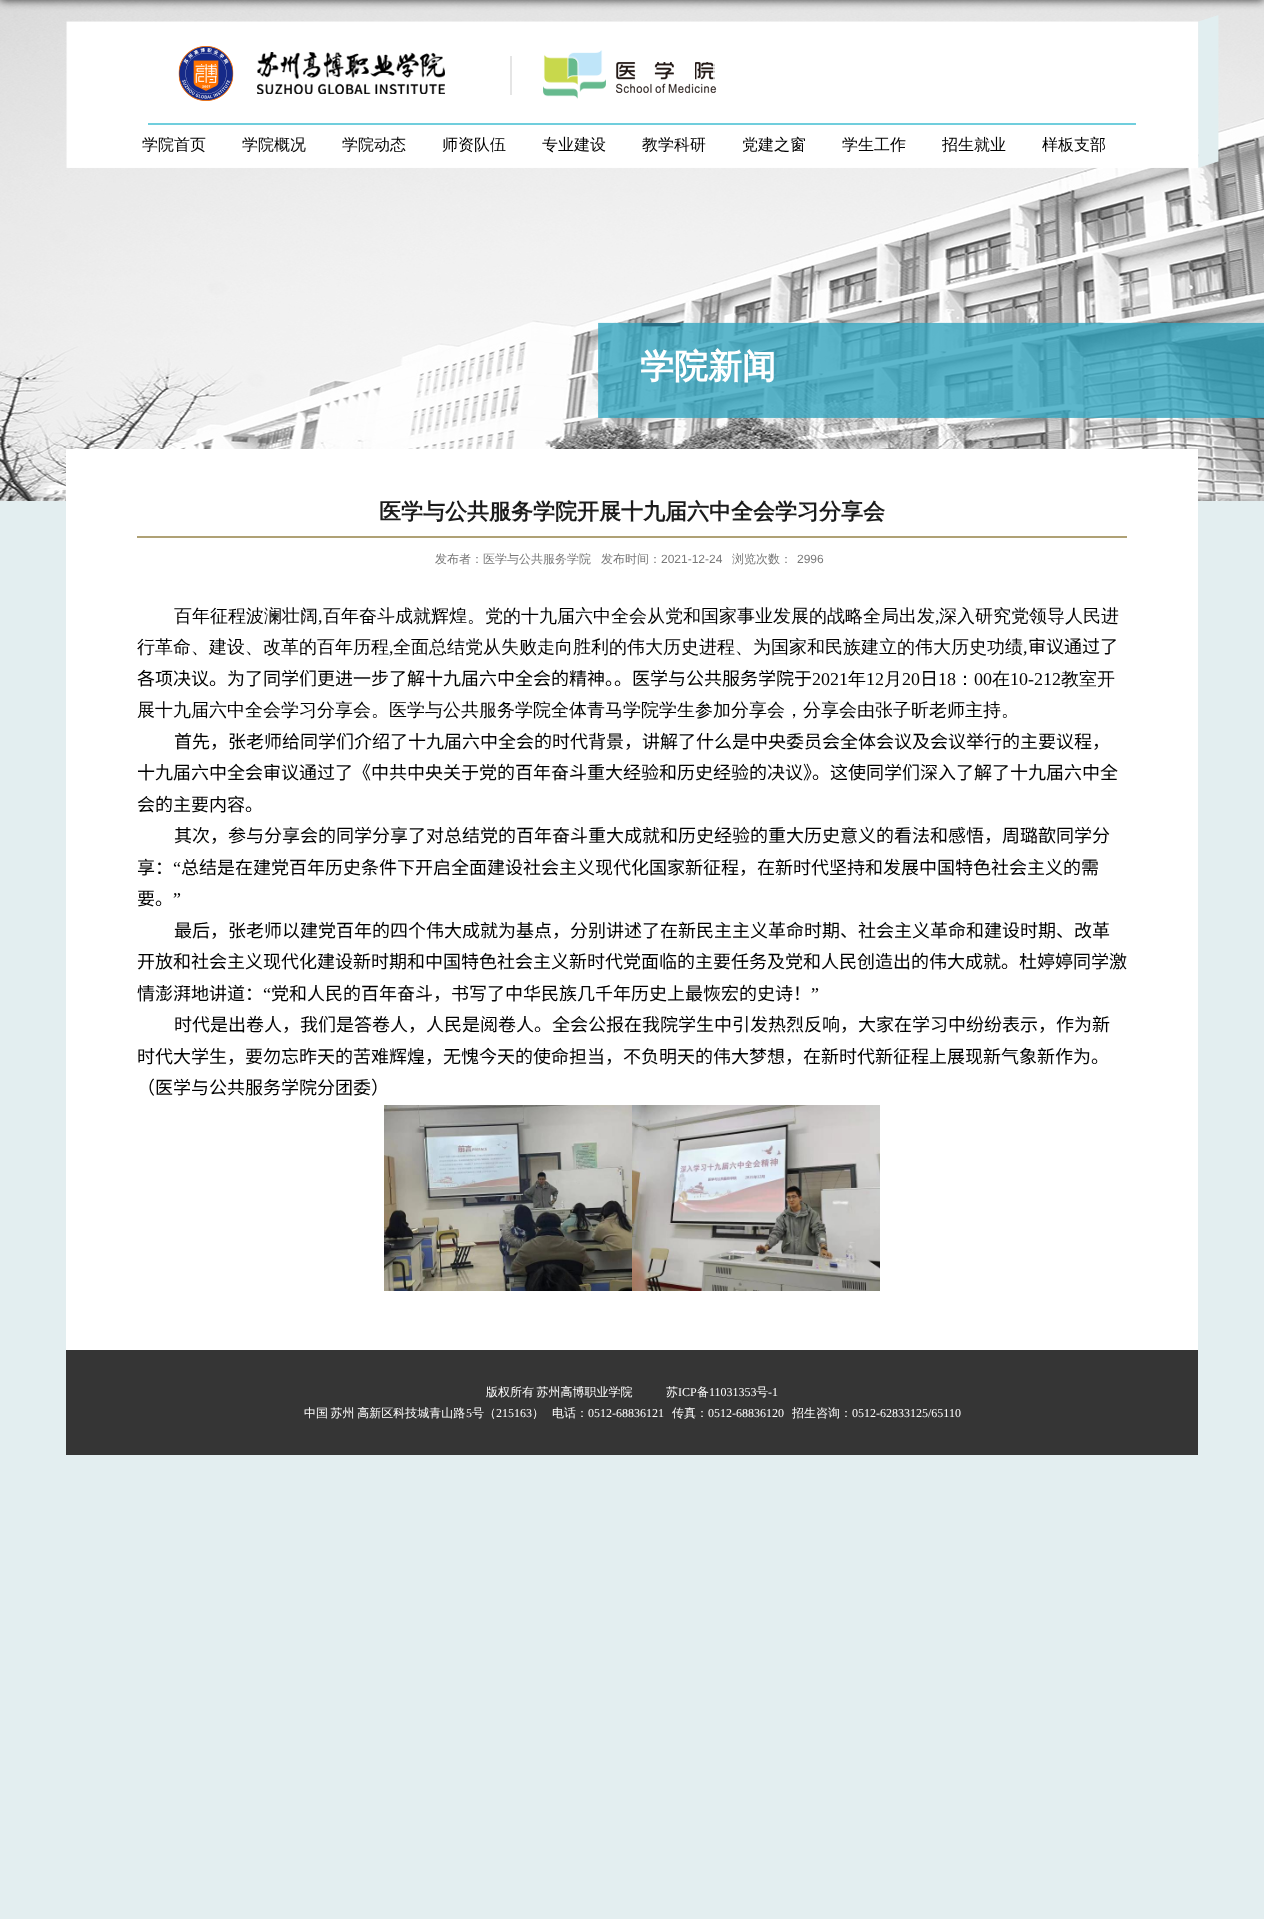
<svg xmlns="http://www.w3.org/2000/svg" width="1264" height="1919">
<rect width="100%" height="100%" fill="#e3eef0"/>
<image x="0" y="0" width="1264" height="501" href="media/4.png"/>
<image x="66" y="15" width="1153" height="153" href="media/1.png"/>
<rect y="-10" width="1264" height="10" fill="#000000cc" filter="blur(5px)"/>
<rect x="148" y="123" width="988" height="2" fill="#70cedd"/>
<image x="178" y="46" width="267" height="55" href="media/2.png"/>
<rect x="510" y="56" width="2" height="39" fill="#e5e5e5"/>
<image x="543" y="50" width="174" height="49" href="media/3.png"/>
<text x="142" y="150" style="font-family:WenQuanYi Zen Hei;font-size:16px;font-weight:500;fill:#000">学院首页</text>
<text x="242" y="150" style="font-family:WenQuanYi Zen Hei;font-size:16px;font-weight:500;fill:#000">学院概况</text>
<text x="342" y="150" style="font-family:WenQuanYi Zen Hei;font-size:16px;font-weight:500;fill:#000">学院动态</text>
<text x="442" y="150" style="font-family:WenQuanYi Zen Hei;font-size:16px;font-weight:500;fill:#000">师资队伍</text>
<text x="542" y="150" style="font-family:WenQuanYi Zen Hei;font-size:16px;font-weight:500;fill:#000">专业建设</text>
<text x="642" y="150" style="font-family:WenQuanYi Zen Hei;font-size:16px;font-weight:500;fill:#000">教学科研</text>
<text x="742" y="150" style="font-family:WenQuanYi Zen Hei;font-size:16px;font-weight:500;fill:#000">党建之窗</text>
<text x="842" y="150" style="font-family:WenQuanYi Zen Hei;font-size:16px;font-weight:500;fill:#000">学生工作</text>
<text x="942" y="150" style="font-family:WenQuanYi Zen Hei;font-size:16px;font-weight:500;fill:#000">招生就业</text>
<text x="1042" y="150" style="font-family:WenQuanYi Zen Hei;font-size:16px;font-weight:500;fill:#000">样板支部</text>
<image x="598" y="322" width="666" height="96" href="media/5.png"/>
<text x="640" y="378" style="font-family:WenQuanYi Zen Hei;font-size:34px;font-weight:bold;fill:#fff">学院新闻</text>
<rect x="66" y="449" width="1132" height="901" fill="#fff"/>
<text x="379" y="519" style="font-family:WenQuanYi Zen Hei;font-size:22px;font-weight:bold;fill:#1b1b1b">医学与公共服务学院开展十九届六中全会学习分享会</text>
<rect x="137" y="536" width="990" height="2" fill="#afa175"/>
<text x="435" y="563" style="font-family:WenQuanYi Zen Hei;font-size:12px;font-weight:500;fill:#787878">发布者：医学与公共服务学院</text>
<text x="601" y="563" style="font-family:WenQuanYi Zen Hei;font-size:12px;font-weight:500;fill:#787878">发布时间：</text>
<text x="661" y="563" style="font-family:Liberation Sans;font-size:12px;fill:#787878">2021-12-24</text>
<text x="732" y="563" style="font-family:WenQuanYi Zen Hei;font-size:12px;font-weight:500;fill:#787878">浏览次数：</text>
<text x="797" y="563" style="font-family:Liberation Sans;font-size:12px;fill:#787878">2996</text>
<text x="174" y="622" style="font-family:WenQuanYi Zen Hei;font-size:18px;font-weight:500;fill:#000">百年征程波澜壮阔</text>
<text x="318" y="622" style="font-family:Liberation Serif;font-size:18px;fill:#000">,</text>
<text x="323" y="622" style="font-family:WenQuanYi Zen Hei;font-size:18px;font-weight:500;fill:#000">百年奋斗成就辉煌。党的十九届六中全会从党和国家事业发展的战略全局出发</text>
<text x="935" y="622" style="font-family:Liberation Serif;font-size:18px;fill:#000">,</text>
<text x="939" y="622" style="font-family:WenQuanYi Zen Hei;font-size:18px;font-weight:500;fill:#000">深入研究党领导人民进</text>
<text x="137" y="653" style="font-family:WenQuanYi Zen Hei;font-size:18px;font-weight:500;fill:#000">行革命、建设、改革的百年历程</text>
<text x="389" y="653" style="font-family:Liberation Serif;font-size:18px;fill:#000">,</text>
<text x="393" y="653" style="font-family:WenQuanYi Zen Hei;font-size:18px;font-weight:500;fill:#000">全面总结党从失败走向胜利的伟大历史进程、为国家和民族建立的伟大历史功绩</text>
<text x="1023" y="653" style="font-family:Liberation Serif;font-size:18px;fill:#000">,</text>
<text x="1028" y="653" style="font-family:Noto Sans CJK SC;font-size:18px;fill:#000">审议通过了</text>
<text x="137" y="685" style="font-family:Noto Sans CJK SC;font-size:18px;fill:#000">各项决议。为了同学们更进一步了解十九届六中全会的精神。。医学与公共服务学院于</text>
<text x="812" y="685" style="font-family:Liberation Serif;font-size:18px;fill:#000">2021</text>
<text x="848" y="685" style="font-family:WenQuanYi Zen Hei;font-size:18px;font-weight:500;fill:#000">年</text>
<text x="866" y="685" style="font-family:Liberation Serif;font-size:18px;fill:#000">12</text>
<text x="884" y="685" style="font-family:WenQuanYi Zen Hei;font-size:18px;font-weight:500;fill:#000">月</text>
<text x="902" y="685" style="font-family:Liberation Serif;font-size:18px;fill:#000">20</text>
<text x="920" y="685" style="font-family:Noto Sans CJK SC;font-size:18px;fill:#000">日</text>
<text x="938" y="685" style="font-family:Liberation Serif;font-size:18px;fill:#000">18</text>
<text x="956" y="685" style="font-family:WenQuanYi Zen Hei;font-size:18px;font-weight:500;fill:#000">：</text>
<text x="974" y="685" style="font-family:Liberation Serif;font-size:18px;fill:#000">00</text>
<text x="992" y="685" style="font-family:WenQuanYi Zen Hei;font-size:18px;font-weight:500;fill:#000">在</text>
<text x="1010" y="685" style="font-family:Liberation Serif;font-size:18px;fill:#000">10-212</text>
<text x="1061" y="685" style="font-family:WenQuanYi Zen Hei;font-size:18px;font-weight:500;fill:#000">教室开</text>
<text x="137" y="716" style="font-family:WenQuanYi Zen Hei;font-size:18px;font-weight:500;fill:#000">展十九届六中全会学习分享会。医学与公共服务学院全体青马学院学生参加分享会，分享会由张子昕老师主持。</text>
<text x="174" y="748" style="font-family:Noto Sans CJK SC;font-size:18px;fill:#000">首先，张老师给同学们介绍了十九届六中全会的时代背景，讲解了什么是中央委员会全体会议及会议举行的主要议程，</text>
<text x="137" y="779" style="font-family:Noto Sans CJK SC;font-size:18px;fill:#000">十九届六中全会审议通过了《中共中央关于党的百年奋斗重大经验和历史经验的决议》。这使同学们深入了解了十九届六中全</text>
<text x="137" y="811" style="font-family:Noto Sans CJK SC;font-size:18px;fill:#000">会的主要内容。</text>
<text x="174" y="842" style="font-family:Noto Sans CJK SC;font-size:18px;fill:#000">其次，参与分享会的同学分享了对总结党的百年奋斗重大成就和历史经验的重大历史意义的看法和感悟，周璐歆同学分</text>
<text x="137" y="874" style="font-family:Noto Sans CJK SC;font-size:18px;fill:#000">享：</text>
<text x="173" y="874" style="font-family:Liberation Serif;font-size:18px;fill:#000">“</text>
<text x="181" y="874" style="font-family:Noto Sans CJK SC;font-size:18px;fill:#000">总结是在建党百年历史条件下开启全面建设社会主义现代化国家新征程，在新时代坚持和发展中国特色社会主义的需</text>
<text x="137" y="905" style="font-family:Noto Sans CJK SC;font-size:18px;fill:#000">要。</text>
<text x="173" y="905" style="font-family:Liberation Serif;font-size:18px;fill:#000">”</text>
<text x="174" y="937" style="font-family:Noto Sans CJK SC;font-size:18px;fill:#000">最后，张老师以建党百年的四个伟大成就为基点，分别讲述了在新民主主义革命时期、社会主义革命和建设时期、改革</text>
<text x="137" y="968" style="font-family:Noto Sans CJK SC;font-size:18px;fill:#000">开放和社会主义现代化建设新时期和中国特色社会主义新时代党面临的主要任务及党和人民创造出的伟大成就。杜婷婷同学激</text>
<text x="137" y="1000" style="font-family:Noto Sans CJK SC;font-size:18px;fill:#000">情澎湃地讲道：</text>
<text x="263" y="1000" style="font-family:Liberation Serif;font-size:18px;fill:#000">“</text>
<text x="271" y="1000" style="font-family:Noto Sans CJK SC;font-size:18px;fill:#000">党和人民的百年奋斗，书写了中华民族几千年历史上最恢宏的史诗！</text>
<text x="811" y="1000" style="font-family:Liberation Serif;font-size:18px;fill:#000">”</text>
<text x="174" y="1031" style="font-family:Noto Sans CJK SC;font-size:18px;fill:#000">时代是出卷人，我们是答卷人，人民是阅卷人。全会公报在我院学生中引发热烈反响，大家在学习中纷纷表示，作为新</text>
<text x="137" y="1063" style="font-family:Noto Sans CJK SC;font-size:18px;fill:#000">时代大学生，要勿忘昨天的苦难辉煌，无愧今天的使命担当，不负明天的伟大梦想，在新时代新征程上展现新气象新作为。</text>
<text x="137" y="1094" style="font-family:Noto Sans CJK SC;font-size:18px;fill:#000">（医学与公共服务学院分团委）</text>
<image x="384" y="1105" width="248" height="186" href="media/6.png"/>
<image x="632" y="1105" width="248" height="186" href="media/7.png"/>
<rect x="66" y="1350" width="1132" height="105" fill="#353535"/>
<text x="486" y="1396" word-spacing="-1" style="font-family:WenQuanYi Zen Hei;font-size:12px;font-weight:500;fill:#fff">版权所有 苏州高博职业学院</text>
<text x="666" y="1396" style="font-family:WenQuanYi Zen Hei;font-size:12px;font-weight:500;fill:#fff">苏</text>
<text x="678" y="1396" style="font-family:Liberation Serif;font-size:12px;fill:#fff">ICP</text>
<text x="697" y="1396" style="font-family:WenQuanYi Zen Hei;font-size:12px;font-weight:500;fill:#fff">备</text>
<text x="709" y="1396" style="font-family:Liberation Serif;font-size:12px;fill:#fff">11031353</text>
<text x="756" y="1396" style="font-family:WenQuanYi Zen Hei;font-size:12px;font-weight:500;fill:#fff">号</text>
<text x="768" y="1396" style="font-family:Liberation Serif;font-size:12px;fill:#fff">-1</text>
<text x="304" y="1417" word-spacing="-1" style="font-family:WenQuanYi Zen Hei;font-size:12px;font-weight:500;fill:#fff">中国 苏州 高新区科技城青山路</text>
<text x="466" y="1417" style="font-family:Liberation Serif;font-size:12px;fill:#fff">5</text>
<text x="472" y="1417" style="font-family:WenQuanYi Zen Hei;font-size:12px;font-weight:500;fill:#fff">号（</text>
<text x="496" y="1417" style="font-family:Liberation Serif;font-size:12px;fill:#fff">215163</text>
<text x="532" y="1417" style="font-family:WenQuanYi Zen Hei;font-size:12px;font-weight:500;fill:#fff">）</text>
<text x="552" y="1417" style="font-family:WenQuanYi Zen Hei;font-size:12px;font-weight:500;fill:#fff">电话：</text>
<text x="588" y="1417" style="font-family:Liberation Serif;font-size:12px;fill:#fff">0512-68836121</text>
<text x="672" y="1417" style="font-family:WenQuanYi Zen Hei;font-size:12px;font-weight:500;fill:#fff">传真：</text>
<text x="708" y="1417" style="font-family:Liberation Serif;font-size:12px;fill:#fff">0512-68836120</text>
<text x="792" y="1417" style="font-family:WenQuanYi Zen Hei;font-size:12px;font-weight:500;fill:#fff">招生咨询：</text>
<text x="852" y="1417" style="font-family:Liberation Serif;font-size:12px;fill:#fff">0512-62833125/65110</text>
</svg>
